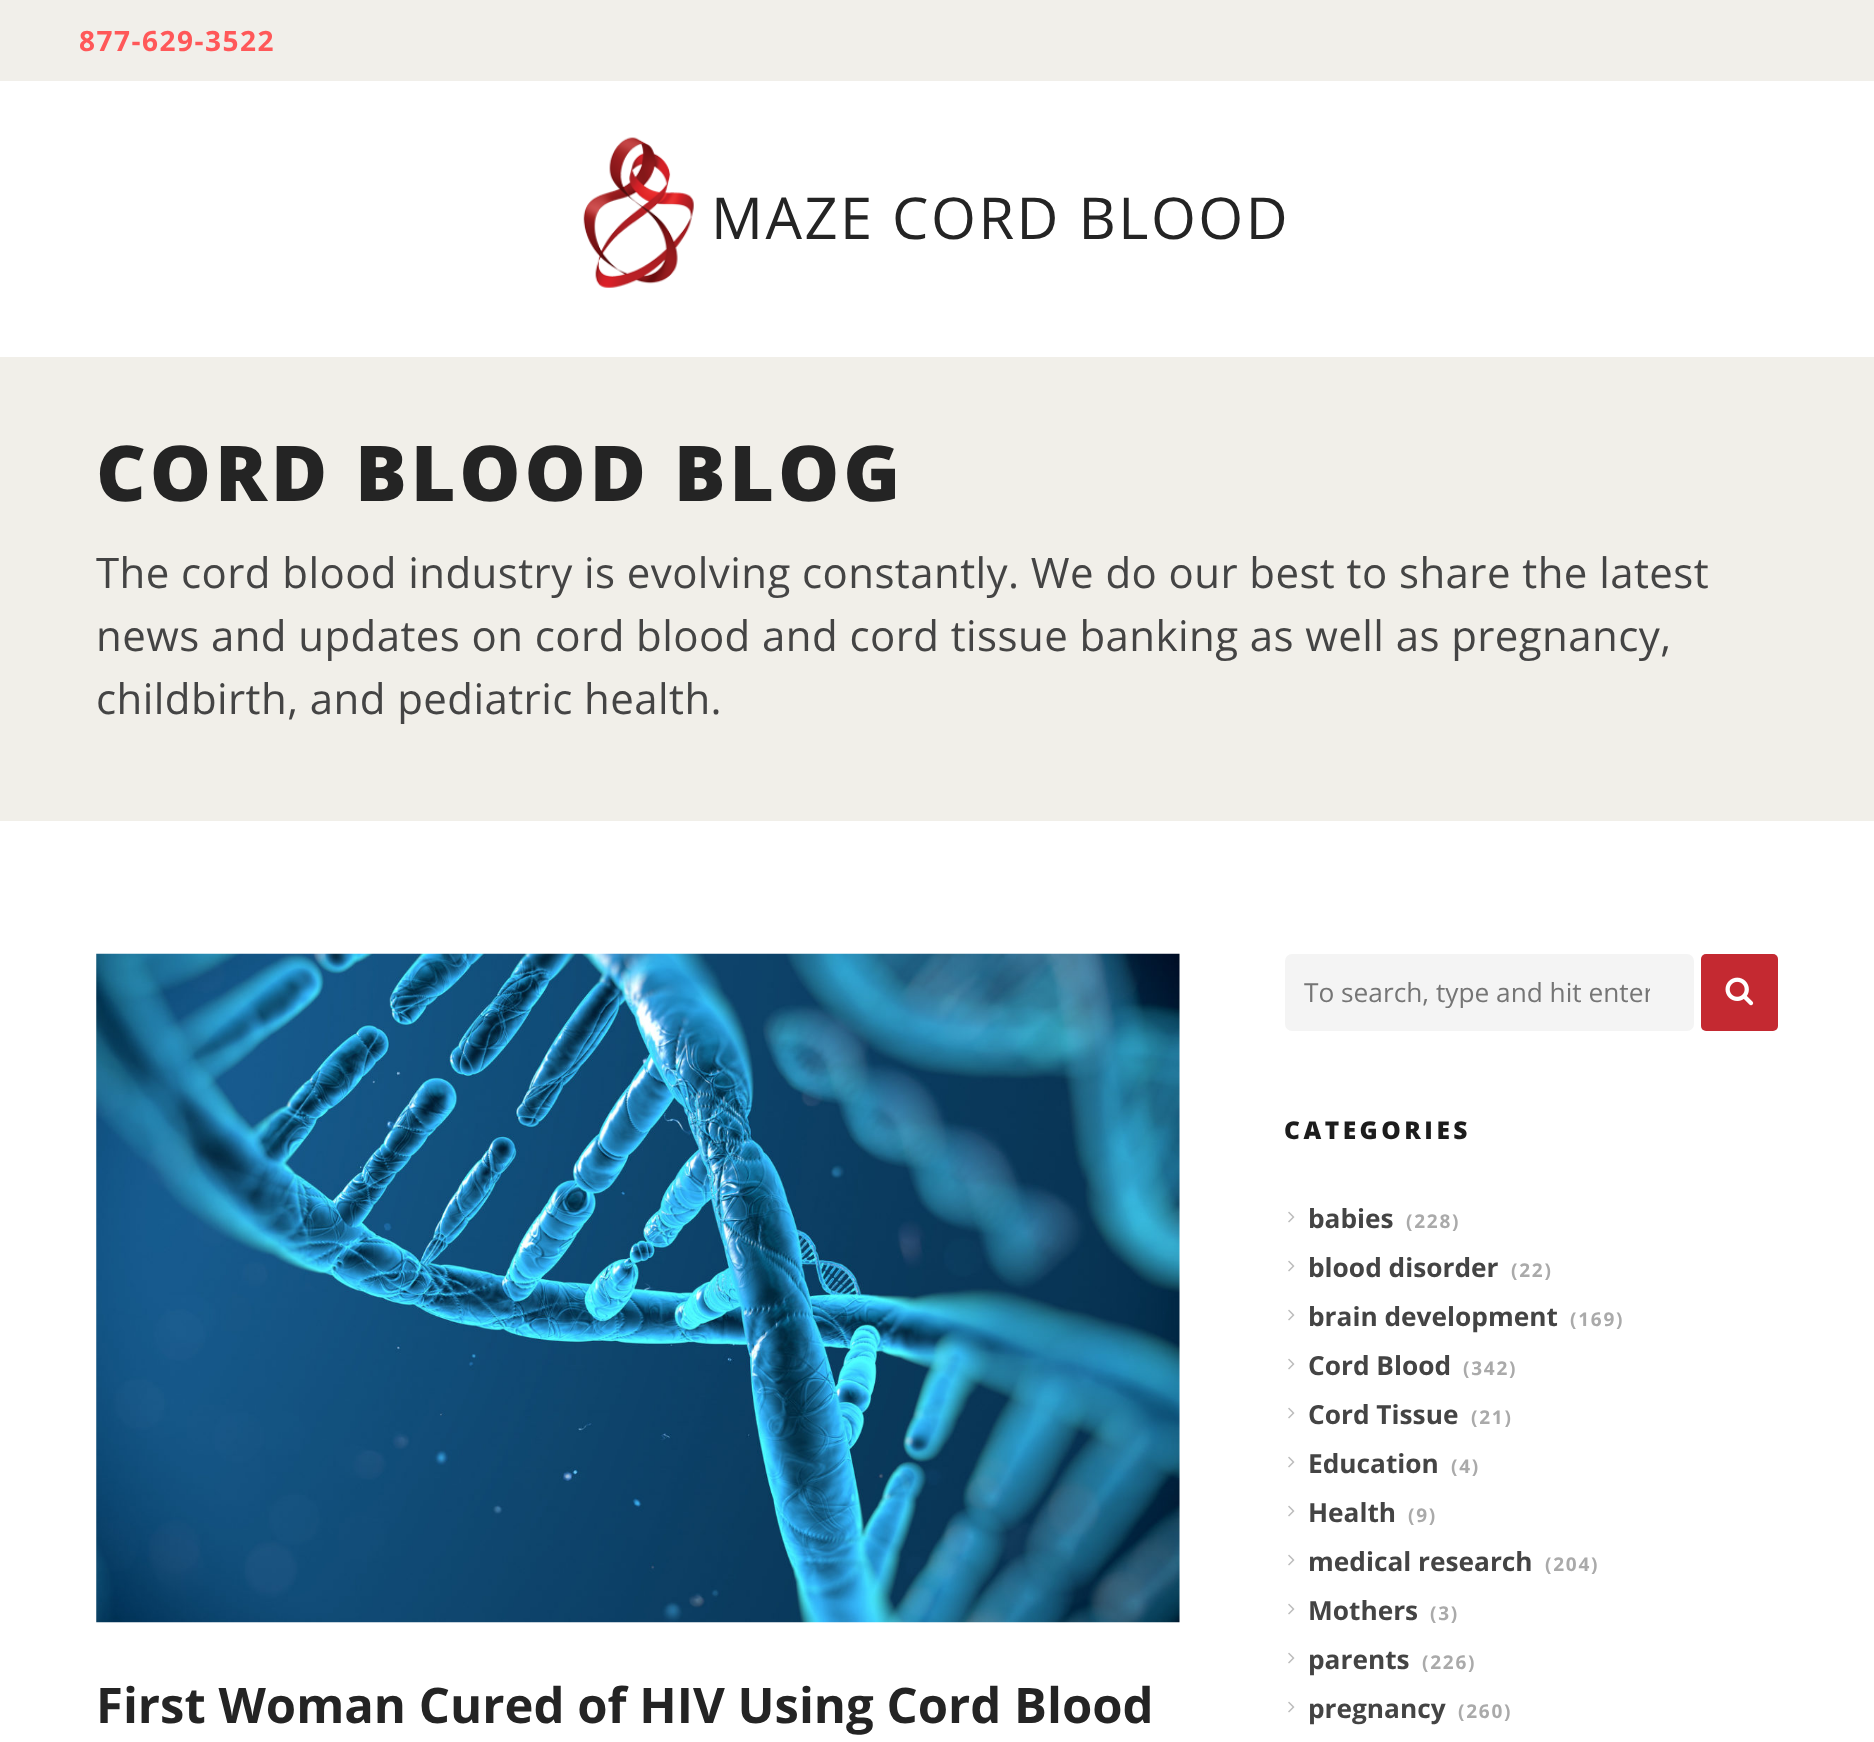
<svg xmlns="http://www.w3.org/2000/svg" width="1874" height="1742">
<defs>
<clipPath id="clip1"><rect x="1304" y="973" width="346" height="35"/></clipPath>
</defs>
<rect width="100%" height="100%" fill="#fff"/>
<rect width="1874" height="81" fill="#f1efea"/>
<text x="79" y="51" style="font-family:Open Sans;font-size:28px;font-weight:bold;letter-spacing:1.5px;fill:#ff5859">877-629-3522</text>
<image x="583" y="137" width="111" height="151" href="media/1.png"/>
<text x="711" y="239" style="font-family:Open Sans;font-size:57.75px;letter-spacing:2.5px;fill:#242424">MAZE CORD BLOOD</text>
<rect y="357" width="1874" height="464" fill="#f1efe9"/>
<text x="96" y="501" style="font-family:Open Sans;font-size:77px;font-weight:800;letter-spacing:3.8px;fill:#242424">CORD BLOOD BLOG</text>
<text x="96" y="588" style="font-family:Open Sans;font-size:42px;letter-spacing:0.42px;fill:#444">The cord blood industry is evolving constantly. We do our best to share the latest</text>
<text x="96" y="651" style="font-family:Open Sans;font-size:42px;letter-spacing:0.42px;fill:#444">news and updates on cord blood and cord tissue banking as well as pregnancy,</text>
<text x="96" y="714" style="font-family:Open Sans;font-size:42px;letter-spacing:0.42px;fill:#444">childbirth, and pediatric health.</text>
<image x="96" y="953" width="1084" height="670" href="media/2.png"/>
<text x="96" y="1723" style="font-family:Open Sans;font-size:49px;font-weight:bold;fill:#242424">First Woman Cured of HIV Using Cord Blood</text>
<rect x="1285" y="954" width="409" height="77" rx="7" fill="#f4f4f4"/>
<g clip-path="url(#clip1)">
<text x="1304" y="1002" style="font-family:Open Sans;font-size:26.25px;fill:#757575">To search, type and hit enter</text>
</g>
<rect x="1701" y="954" width="77" height="77" rx="5" fill="#c42931"/>
<image x="1725" y="977" width="29" height="29" href="media/3.png"/>
<text x="1284" y="1139" style="font-family:Open Sans;font-size:24.5px;font-weight:800;letter-spacing:3.5px;fill:#1c1c1c">CATEGORIES</text>
<image x="1288" y="1211" width="7" height="12" href="media/4.png"/>
<text x="1308" y="1228" style="font-family:Open Sans;font-size:26.25px;font-weight:bold;fill:#444">babies</text>
<text x="1406" y="1228" style="font-family:Open Sans;font-size:19px;font-weight:bold;letter-spacing:1.75px;fill:#aaa">(228)</text>
<image x="1288" y="1260" width="7" height="12" href="media/4.png"/>
<text x="1308" y="1277" style="font-family:Open Sans;font-size:26.25px;font-weight:bold;fill:#444">blood disorder</text>
<text x="1511" y="1277" style="font-family:Open Sans;font-size:19px;font-weight:bold;letter-spacing:1.75px;fill:#aaa">(22)</text>
<image x="1288" y="1309" width="7" height="12" href="media/4.png"/>
<text x="1308" y="1326" style="font-family:Open Sans;font-size:26.25px;font-weight:bold;fill:#444">brain development</text>
<text x="1570" y="1326" style="font-family:Open Sans;font-size:19px;font-weight:bold;letter-spacing:1.75px;fill:#aaa">(169)</text>
<image x="1288" y="1358" width="7" height="12" href="media/4.png"/>
<text x="1308" y="1375" style="font-family:Open Sans;font-size:26.25px;font-weight:bold;fill:#444">Cord Blood</text>
<text x="1463" y="1375" style="font-family:Open Sans;font-size:19px;font-weight:bold;letter-spacing:1.75px;fill:#aaa">(342)</text>
<image x="1288" y="1407" width="7" height="12" href="media/4.png"/>
<text x="1308" y="1424" style="font-family:Open Sans;font-size:26.25px;font-weight:bold;fill:#444">Cord Tissue</text>
<text x="1471" y="1424" style="font-family:Open Sans;font-size:19px;font-weight:bold;letter-spacing:1.75px;fill:#aaa">(21)</text>
<image x="1288" y="1456" width="7" height="12" href="media/4.png"/>
<text x="1308" y="1473" style="font-family:Open Sans;font-size:26.25px;font-weight:bold;fill:#444">Education</text>
<text x="1451" y="1473" style="font-family:Open Sans;font-size:19px;font-weight:bold;letter-spacing:1.75px;fill:#aaa">(4)</text>
<image x="1288" y="1505" width="7" height="12" href="media/4.png"/>
<text x="1308" y="1522" style="font-family:Open Sans;font-size:26.25px;font-weight:bold;fill:#444">Health</text>
<text x="1408" y="1522" style="font-family:Open Sans;font-size:19px;font-weight:bold;letter-spacing:1.75px;fill:#aaa">(9)</text>
<image x="1288" y="1554" width="7" height="12" href="media/4.png"/>
<text x="1308" y="1571" style="font-family:Open Sans;font-size:26.25px;font-weight:bold;fill:#444">medical research</text>
<text x="1545" y="1571" style="font-family:Open Sans;font-size:19px;font-weight:bold;letter-spacing:1.75px;fill:#aaa">(204)</text>
<image x="1288" y="1603" width="7" height="12" href="media/4.png"/>
<text x="1308" y="1620" style="font-family:Open Sans;font-size:26.25px;font-weight:bold;fill:#444">Mothers</text>
<text x="1430" y="1620" style="font-family:Open Sans;font-size:19px;font-weight:bold;letter-spacing:1.75px;fill:#aaa">(3)</text>
<image x="1288" y="1652" width="7" height="12" href="media/4.png"/>
<text x="1308" y="1669" style="font-family:Open Sans;font-size:26.25px;font-weight:bold;fill:#444">parents</text>
<text x="1422" y="1669" style="font-family:Open Sans;font-size:19px;font-weight:bold;letter-spacing:1.75px;fill:#aaa">(226)</text>
<image x="1288" y="1701" width="7" height="12" href="media/4.png"/>
<text x="1308" y="1718" style="font-family:Open Sans;font-size:26.25px;font-weight:bold;fill:#444">pregnancy</text>
<text x="1458" y="1718" style="font-family:Open Sans;font-size:19px;font-weight:bold;letter-spacing:1.75px;fill:#aaa">(260)</text>
</svg>
